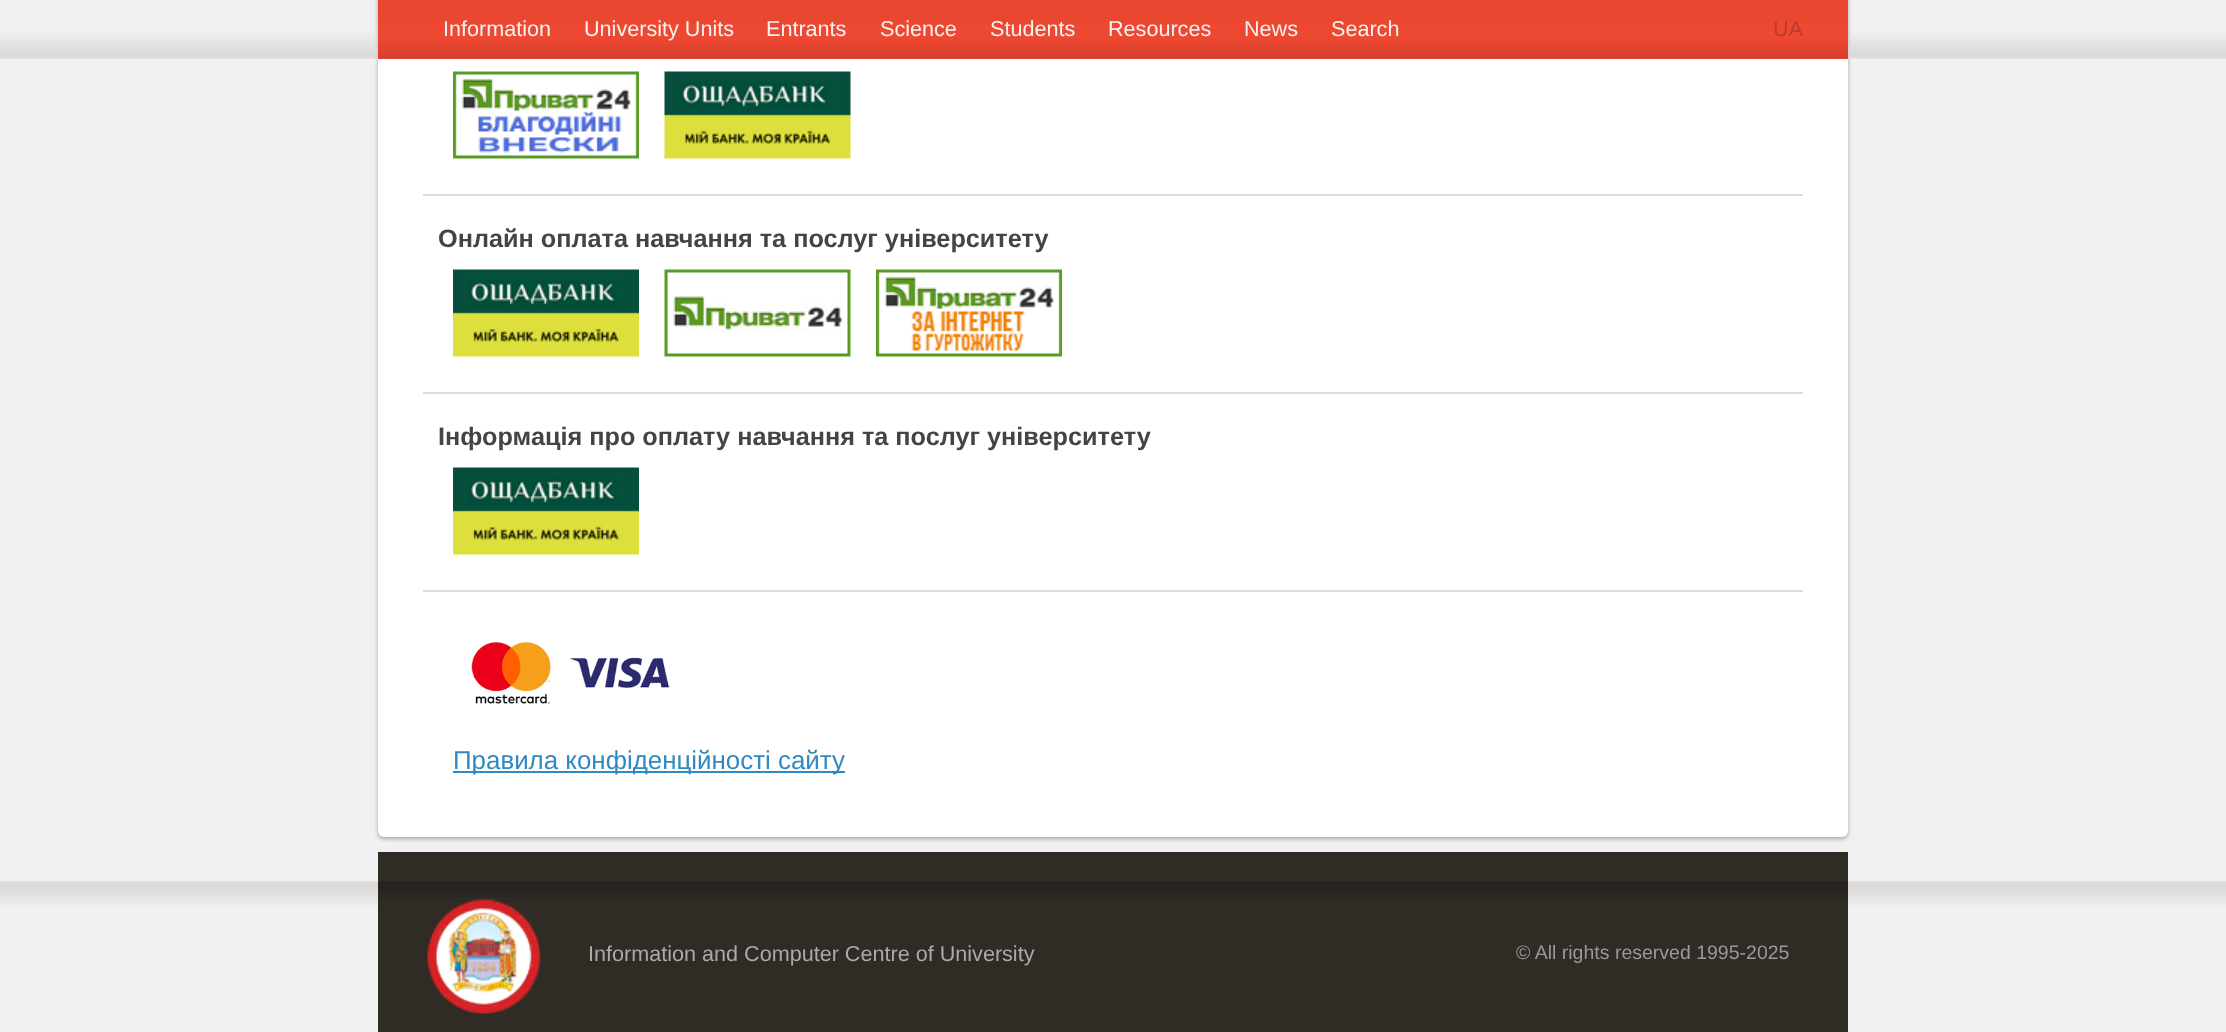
<svg xmlns="http://www.w3.org/2000/svg" width="2226" height="1032">
<rect width="100%" height="100%" fill="#f1f1f1"/>
<rect x="378" y="-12" width="1470" height="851" rx="6" fill="#0000004d" filter="blur(2px)"/>
<rect x="378" y="-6" width="1470" height="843" rx="6" fill="#fff"/>
<image x="0" y="31" width="2226" height="28" href="media/1.png"/>
<rect x="378" width="1470" height="59" fill="#ea4731"/>
<image x="378" y="23" width="1470" height="36" href="media/2.png"/>
<text x="443" y="36" style="font-family:Liberation Sans;font-size:21.6px;fill:#f4f3f1">Information</text>
<text x="584" y="36" style="font-family:Liberation Sans;font-size:21.6px;fill:#f4f3f1">University Units</text>
<text x="766" y="36" style="font-family:Liberation Sans;font-size:21.6px;fill:#f4f3f1">Entrants</text>
<text x="880" y="36" style="font-family:Liberation Sans;font-size:21.6px;fill:#f4f3f1">Science</text>
<text x="990" y="36" style="font-family:Liberation Sans;font-size:21.6px;fill:#f4f3f1">Students</text>
<text x="1108" y="36" style="font-family:Liberation Sans;font-size:21.6px;fill:#f4f3f1">Resources</text>
<text x="1244" y="36" style="font-family:Liberation Sans;font-size:21.6px;fill:#f4f3f1">News</text>
<text x="1331" y="36" style="font-family:Liberation Sans;font-size:21.6px;fill:#f4f3f1">Search</text>
<text x="1773" y="36" style="font-family:Liberation Sans;font-size:21.6px;fill:#bf3a28">UA</text>
<image x="453" y="71" width="186" height="88" href="media/3.png"/>
<image x="664" y="71" width="187" height="88" href="media/4.png"/>
<rect x="423" y="194" width="1380" height="2" fill="#ddd"/>
<text x="438" y="247" style="font-family:Liberation Sans;font-size:25.25px;font-weight:bold;fill:#444">Онлайн оплата навчання та послуг університету</text>
<image x="453" y="269" width="186" height="88" href="media/5.png"/>
<image x="664" y="269" width="187" height="88" href="media/6.png"/>
<image x="876" y="269" width="186" height="88" href="media/7.png"/>
<rect x="423" y="392" width="1380" height="2" fill="#ddd"/>
<text x="438" y="445" style="font-family:Liberation Sans;font-size:25.25px;font-weight:bold;fill:#444">Інформація про оплату навчання та послуг університету</text>
<image x="453" y="467" width="186" height="88" href="media/5.png"/>
<rect x="423" y="590" width="1380" height="2" fill="#ddd"/>
<image x="471" y="641" width="199" height="63" href="media/8.png"/>
<rect x="453" y="771" width="392" height="2" fill="#3089c2"/>
<text x="453" y="769" style="font-family:Liberation Sans;font-size:25.9px;fill:#3089c2">Правила конфіденційності сайту</text>
<image x="0" y="881" width="2226" height="24" href="media/9.png"/>
<rect x="378" y="852" width="1470" height="180" fill="#2f2b25"/>
<image x="378" y="881" width="1470" height="16" href="media/10.png"/>
<image x="427" y="899" width="114" height="115" href="media/11.png"/>
<text x="588" y="961" style="font-family:Liberation Sans;font-size:21.6px;fill:#aaa">Information and Computer Centre of University</text>
<text x="1516" y="959" style="font-family:Liberation Sans;font-size:19.5px;fill:#999">© All rights reserved 1995-2025</text>
</svg>
